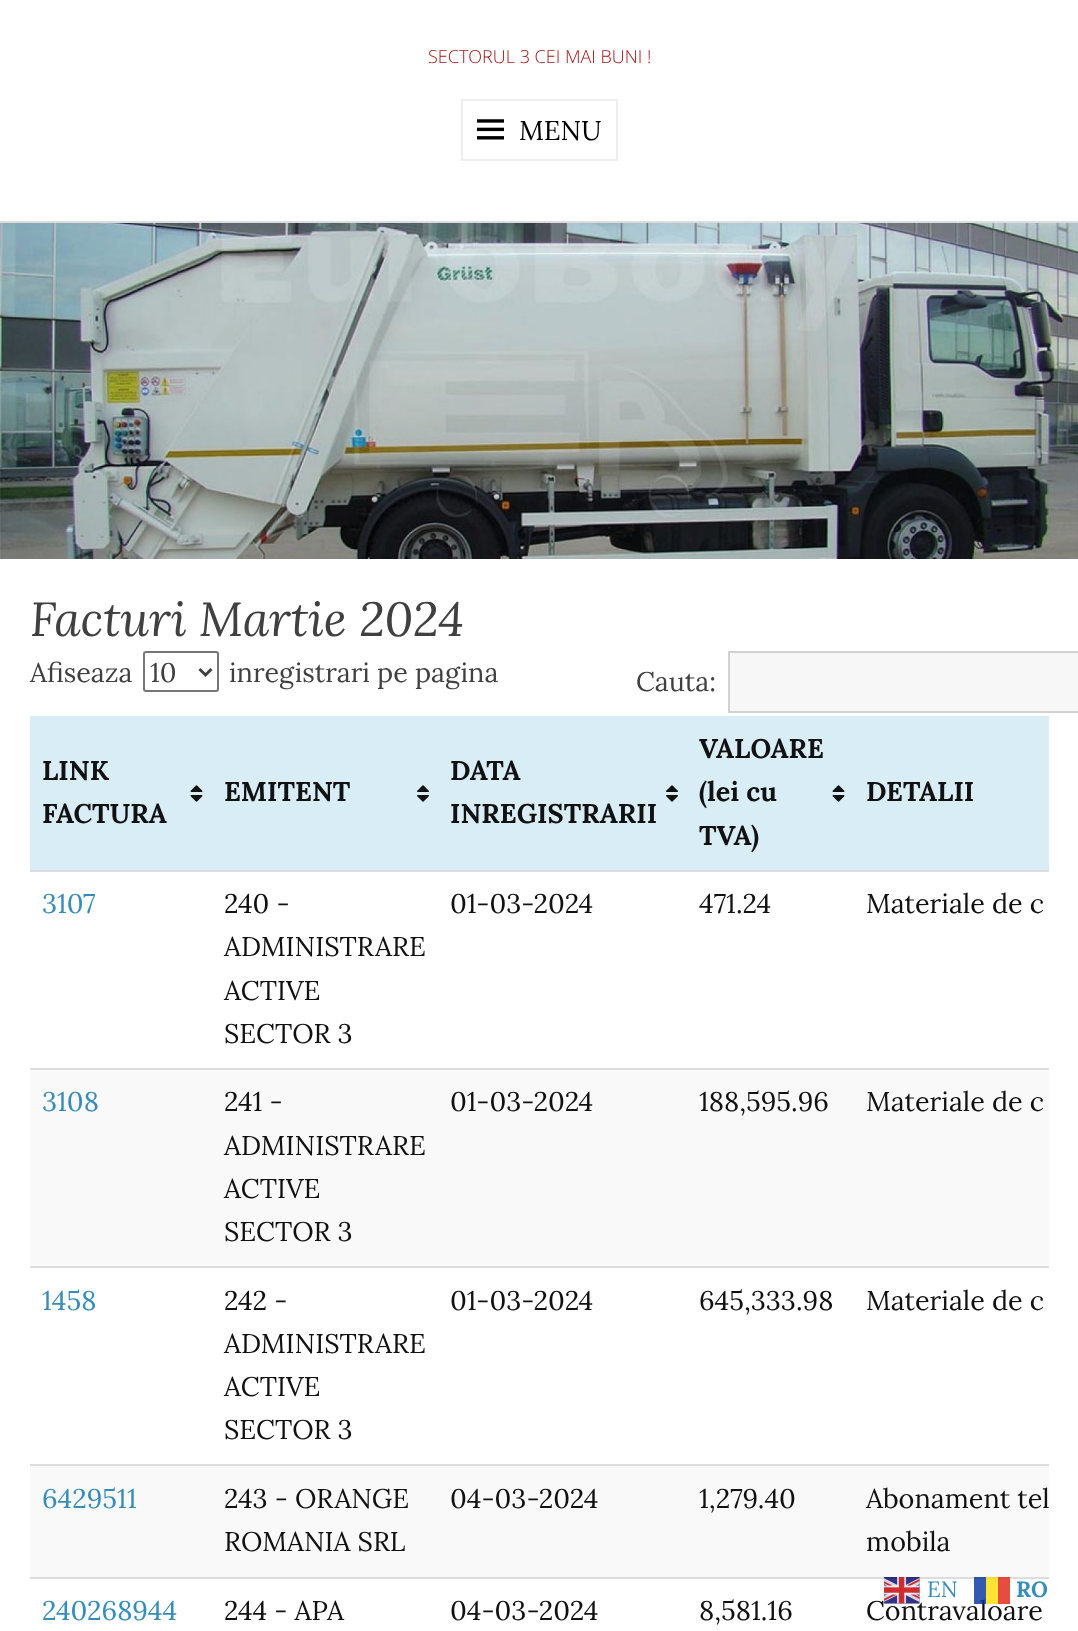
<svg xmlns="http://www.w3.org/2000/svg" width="1078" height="1631">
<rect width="100%" height="100%" fill="#fff"/>
<rect x="998" y="1579" width="12" height="25" fill="#e54d40"/>
<rect x="986" y="1579" width="12" height="25" fill="#ffe533"/>
<rect y="221" width="1078" height="2" fill="#ddd"/>
<text x="428" y="63" style="font-family:Open Sans;font-size:18px;font-weight:300;fill:#a31515">SECTORUL 3 CEI MAI BUNI !</text>
<rect x="462" y="100" width="155" height="60" fill="none" stroke="#eee" stroke-width="2"/>
<image x="477" y="119" width="27" height="21" href="media/1.png"/>
<text x="519" y="140" style="font-family:Lora;font-size:27px;fill:#000">MENU</text>
<image x="0" y="223" width="1078" height="336" href="media/2.png"/>
<text x="30" y="636" style="font-family:Lora;font-size:48px;font-style:italic;fill:#404040">Facturi Martie 2024</text>
<text x="30" y="682" style="font-family:Lora;font-size:27px;fill:#404040">Afiseaza</text>
<rect x="144" y="652" width="74" height="39" rx="2" fill="none" stroke="#767676" stroke-width="2"/>
<path d="M199.5 669l6 6l6-6" fill="none" stroke="#404040" stroke-width="3"/>
<text x="150" y="682" style="font-family:Lora;font-size:27px;fill:#404040">10</text>
<text x="229" y="682" style="font-family:Lora;font-size:27px;fill:#404040">inregistrari pe pagina</text>
<text x="636" y="691" style="font-family:Lora;font-size:27px;fill:#404040">Cauta:</text>
<rect x="729" y="652" width="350" height="60" fill="#f7f7f7" stroke="#d1d1d1" stroke-width="2"/>
<rect x="30" y="716" width="1019" height="154" fill="#d9edf7"/>
<text x="42" y="780" style="font-family:Lora;font-size:27px;font-weight:bold;fill:#111">LINK</text>
<image x="190" y="785" width="13" height="17" href="media/3.png"/>
<text x="42" y="823" style="font-family:Lora;font-size:27px;font-weight:bold;fill:#111">FACTURA</text>
<text x="224" y="801" style="font-family:Lora;font-size:27px;font-weight:bold;fill:#111">EMITENT</text>
<image x="417" y="785" width="12" height="17" href="media/4.png"/>
<text x="450" y="780" style="font-family:Lora;font-size:27px;font-weight:bold;fill:#111">DATA</text>
<image x="666" y="785" width="12" height="17" href="media/4.png"/>
<text x="450" y="823" style="font-family:Lora;font-size:27px;font-weight:bold;fill:#111">INREGISTRARII</text>
<text x="699" y="758" style="font-family:Lora;font-size:27px;font-weight:bold;fill:#111">VALOARE</text>
<text x="699" y="801" style="font-family:Lora;font-size:27px;font-weight:bold;fill:#111">(lei cu</text>
<image x="832" y="785" width="13" height="17" href="media/3.png"/>
<text x="699" y="845" style="font-family:Lora;font-size:27px;font-weight:bold;fill:#111">TVA)</text>
<text x="866" y="801" style="font-family:Lora;font-size:27px;font-weight:bold;fill:#111">DETALII</text>
<text x="42" y="913" style="font-family:Lora;font-size:27px;fill:#368cbb">3107</text>
<text x="224" y="913" style="font-family:Lora;font-size:27px;fill:#111">240 -</text>
<text x="224" y="956" style="font-family:Lora;font-size:27px;fill:#111">ADMINISTRARE</text>
<text x="224" y="1000" style="font-family:Lora;font-size:27px;fill:#111">ACTIVE</text>
<text x="224" y="1043" style="font-family:Lora;font-size:27px;fill:#111">SECTOR 3</text>
<text x="450" y="913" style="font-family:Lora;font-size:27px;fill:#111">01-03-2024</text>
<text x="699" y="913" style="font-family:Lora;font-size:27px;fill:#111">471.24</text>
<rect x="30" y="870" width="1019" height="2" fill="#ddd"/>
<text x="866" y="913" style="font-family:Lora;font-size:27px;fill:#111">Materiale de c</text>
<rect x="30" y="1070" width="1019" height="196" fill="#f9f9f9"/>
<text x="42" y="1111" style="font-family:Lora;font-size:27px;fill:#368cbb">3108</text>
<text x="224" y="1111" style="font-family:Lora;font-size:27px;fill:#111">241 -</text>
<text x="224" y="1155" style="font-family:Lora;font-size:27px;fill:#111">ADMINISTRARE</text>
<text x="224" y="1198" style="font-family:Lora;font-size:27px;fill:#111">ACTIVE</text>
<text x="224" y="1241" style="font-family:Lora;font-size:27px;fill:#111">SECTOR 3</text>
<text x="450" y="1111" style="font-family:Lora;font-size:27px;fill:#111">01-03-2024</text>
<text x="699" y="1111" style="font-family:Lora;font-size:27px;fill:#111">188,595.96</text>
<rect x="30" y="1068" width="1019" height="2" fill="#ddd"/>
<text x="866" y="1111" style="font-family:Lora;font-size:27px;fill:#111">Materiale de c</text>
<text x="42" y="1310" style="font-family:Lora;font-size:27px;fill:#368cbb">1458</text>
<text x="224" y="1310" style="font-family:Lora;font-size:27px;fill:#111">242 -</text>
<text x="224" y="1353" style="font-family:Lora;font-size:27px;fill:#111">ADMINISTRARE</text>
<text x="224" y="1396" style="font-family:Lora;font-size:27px;fill:#111">ACTIVE</text>
<text x="224" y="1439" style="font-family:Lora;font-size:27px;fill:#111">SECTOR 3</text>
<text x="450" y="1310" style="font-family:Lora;font-size:27px;fill:#111">01-03-2024</text>
<text x="699" y="1310" style="font-family:Lora;font-size:27px;fill:#111">645,333.98</text>
<rect x="30" y="1266" width="1019" height="2" fill="#ddd"/>
<text x="866" y="1310" style="font-family:Lora;font-size:27px;fill:#111">Materiale de c</text>
<rect x="30" y="1466" width="1019" height="111" fill="#f9f9f9"/>
<text x="42" y="1508" style="font-family:Lora;font-size:27px;fill:#368cbb">6429511</text>
<text x="224" y="1508" style="font-family:Lora;font-size:27px;fill:#111">243 - ORANGE</text>
<text x="224" y="1551" style="font-family:Lora;font-size:27px;fill:#111">ROMANIA SRL</text>
<text x="450" y="1508" style="font-family:Lora;font-size:27px;fill:#111">04-03-2024</text>
<text x="699" y="1508" style="font-family:Lora;font-size:27px;fill:#111">1,279.40</text>
<rect x="30" y="1464" width="1019" height="2" fill="#ddd"/>
<text x="866" y="1508" style="font-family:Lora;font-size:27px;fill:#111">Abonament tel</text>
<text x="866" y="1551" style="font-family:Lora;font-size:27px;fill:#111">mobila</text>
<text x="42" y="1620" style="font-family:Lora;font-size:27px;fill:#368cbb">240268944</text>
<text x="224" y="1620" style="font-family:Lora;font-size:27px;fill:#111">244 - APA</text>
<text x="450" y="1620" style="font-family:Lora;font-size:27px;fill:#111">04-03-2024</text>
<text x="699" y="1620" style="font-family:Lora;font-size:27px;fill:#111">8,581.16</text>
<rect x="30" y="1577" width="1019" height="2" fill="#ddd"/>
<rect x="998" y="1577" width="12" height="2" fill="#de4739"/>
<rect x="986" y="1577" width="12" height="2" fill="#f8de2c"/>
<text x="866" y="1620" style="font-family:Lora;font-size:27px;fill:#111">Contravaloare</text>
<image x="884" y="1577" width="36" height="27" href="media/5.png"/>
<text x="927" y="1597" style="font-family:Lora;font-size:22px;fill:#368cbb">EN</text>
<text x="1016" y="1597" style="font-family:Lora;font-size:22px;font-weight:bold;fill:#368cbb">RO</text>
<rect x="974" y="1577" width="12" height="27" fill="#00319ccc"/>
</svg>
